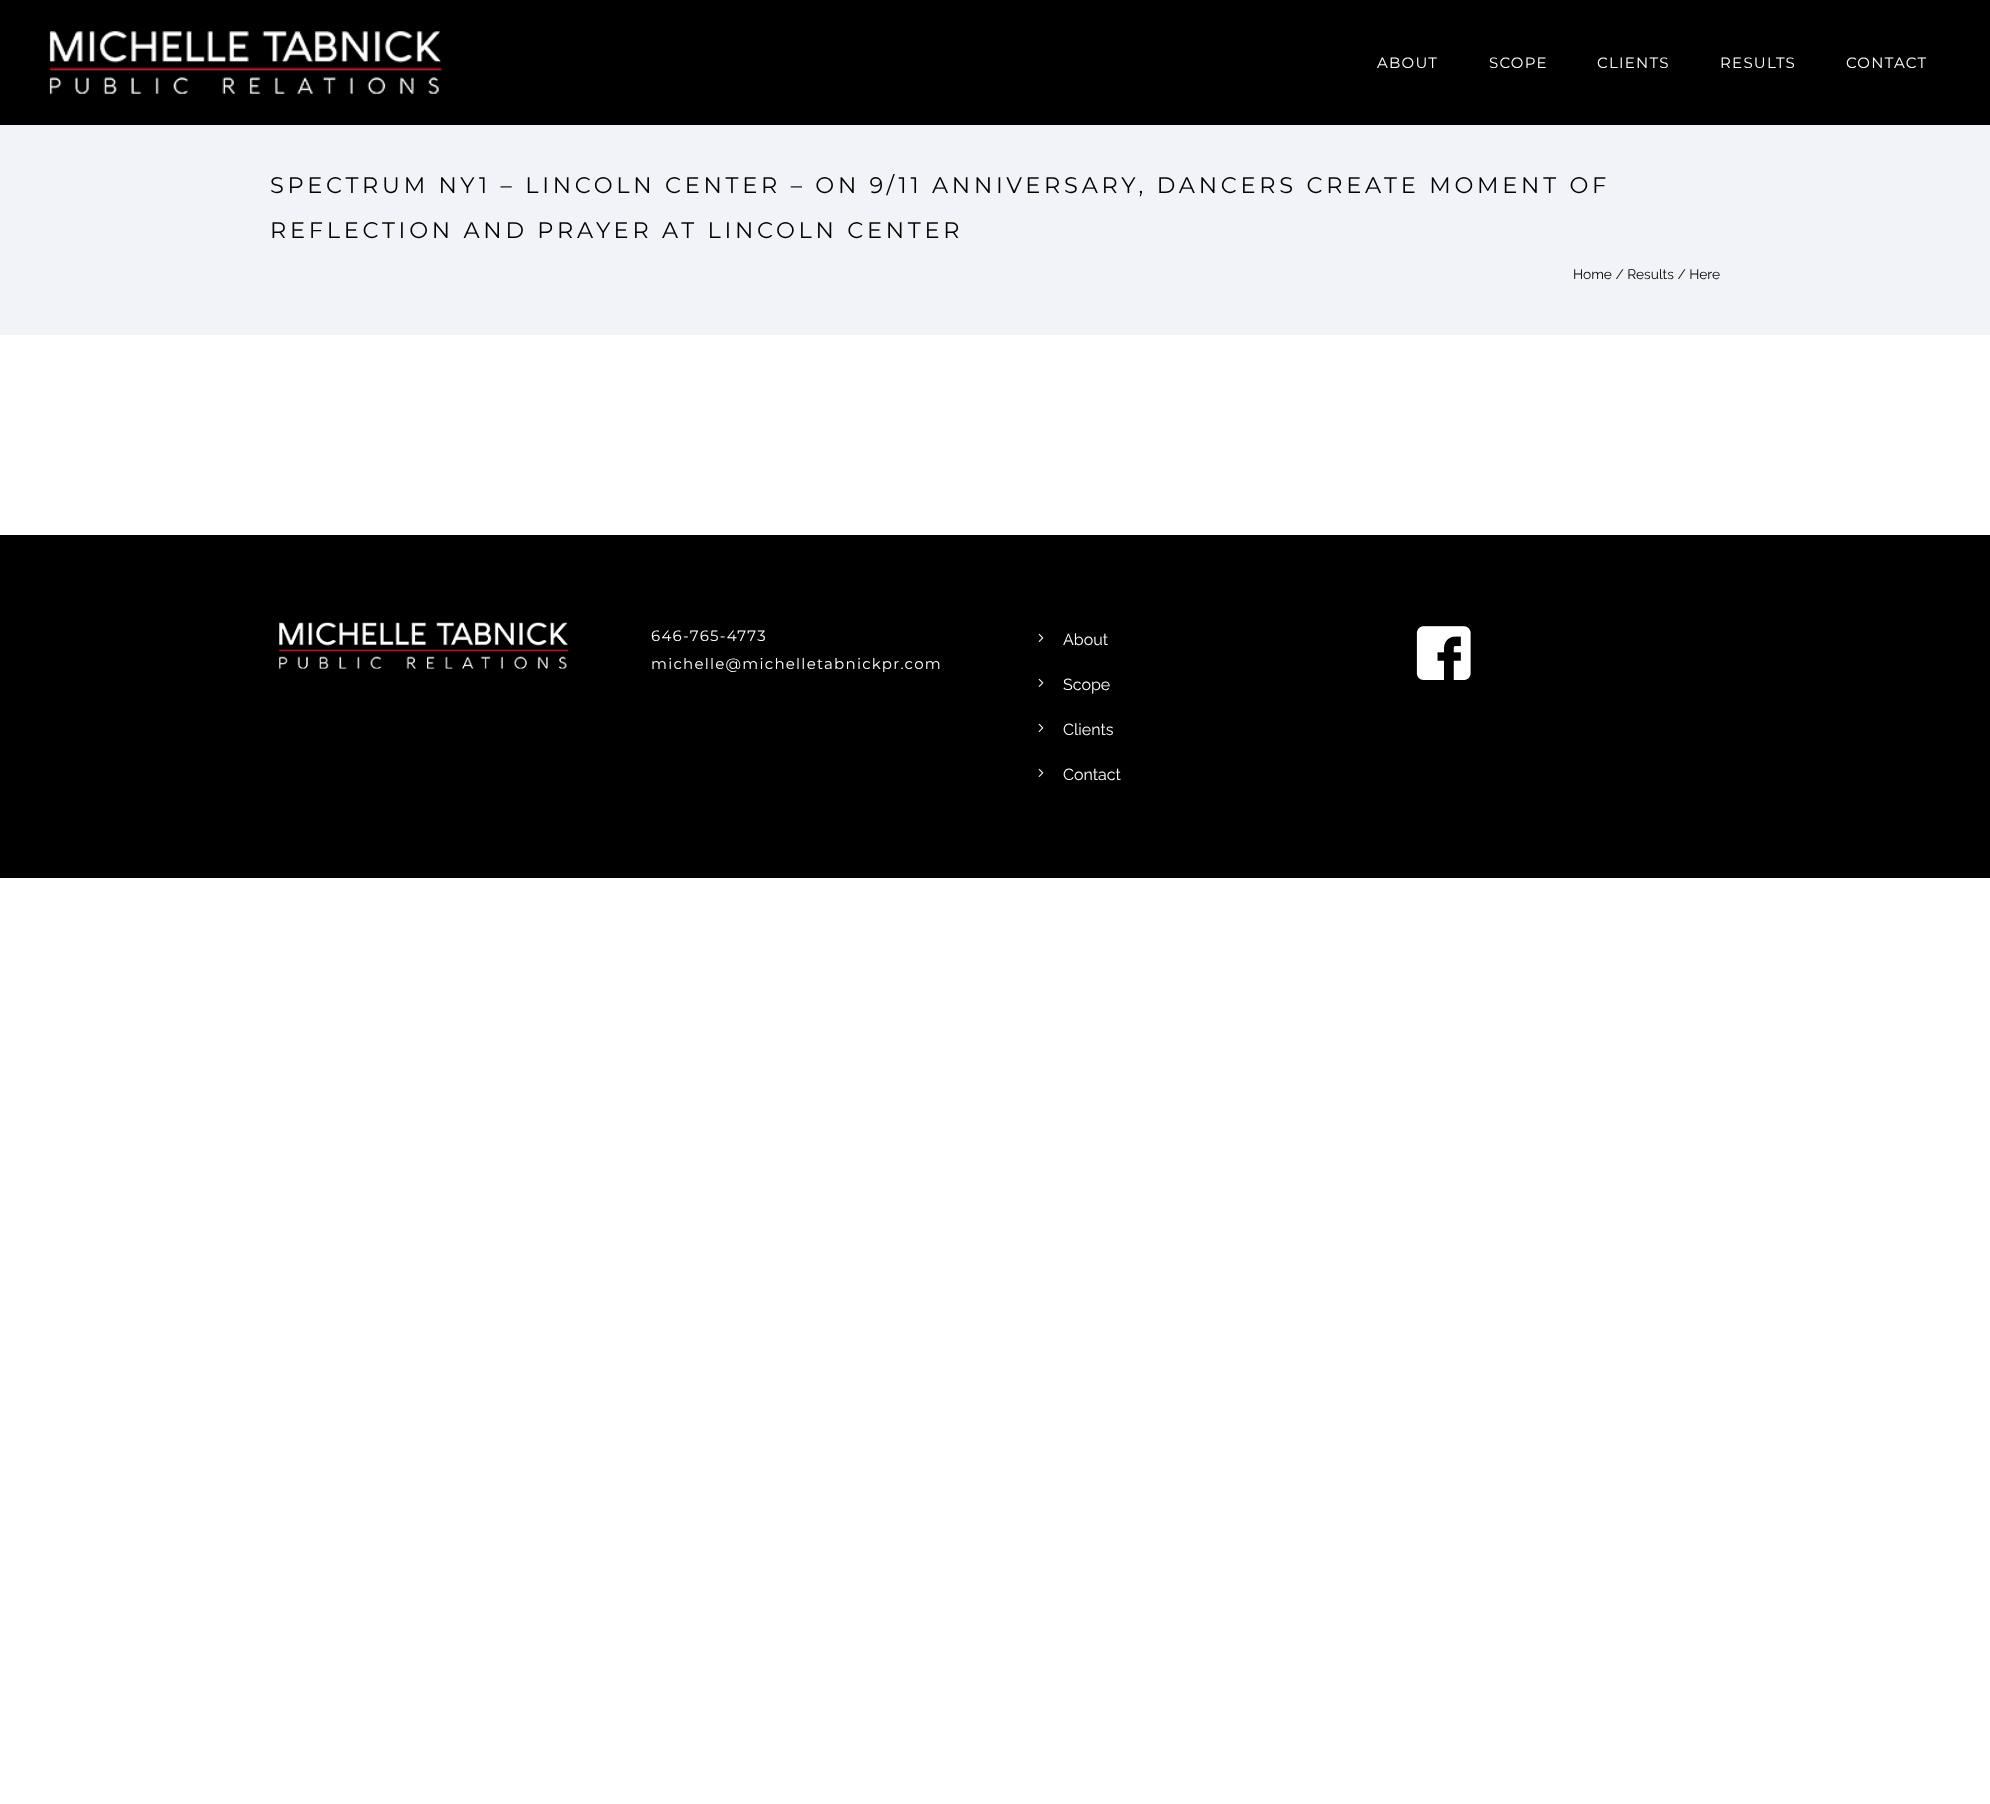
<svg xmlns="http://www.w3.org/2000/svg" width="1990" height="1804">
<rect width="100%" height="100%" fill="#fff"/>
<rect width="1990" height="125" fill="#000"/>
<image x="49" y="31" width="393" height="63" href="media/1.png"/>
<text x="1377" y="68" style="font-family:Montserrat;font-size:15px;letter-spacing:1.25px;fill:#fff">ABOUT</text>
<text x="1489" y="68" style="font-family:Montserrat;font-size:15px;letter-spacing:1.25px;fill:#fff">SCOPE</text>
<text x="1597" y="68" style="font-family:Montserrat;font-size:15px;letter-spacing:1.25px;fill:#fff">CLIENTS</text>
<text x="1720" y="68" style="font-family:Montserrat;font-size:15px;letter-spacing:1.25px;fill:#fff">RESULTS</text>
<text x="1846" y="68" style="font-family:Montserrat;font-size:15px;letter-spacing:1.25px;fill:#fff">CONTACT</text>
<rect y="125" width="1990" height="210" fill="#f2f3f8"/>
<text x="270" y="193" style="font-family:Montserrat;font-size:22.5px;letter-spacing:3.75px;fill:#000">SPECTRUM NY1 – LINCOLN CENTER – ON 9/11 ANNIVERSARY, DANCERS CREATE MOMENT OF</text>
<text x="270" y="238" style="font-family:Montserrat;font-size:22.5px;letter-spacing:3.75px;fill:#000">REFLECTION AND PRAYER AT LINCOLN CENTER</text>
<text x="1573" y="279" style="font-family:Raleway;font-size:13.75px;fill:#000">Home / Results / Here</text>
<rect y="535" width="1990" height="343" fill="#000"/>
<image x="279" y="622" width="290" height="47" href="media/2.png"/>
<text x="651" y="641" style="font-family:Montserrat;font-size:15px;letter-spacing:1.25px;fill:#fff">646-765-4773</text>
<text x="651" y="669" style="font-family:Montserrat;font-size:15px;letter-spacing:1.25px;fill:#fff">michelle@michelletabnickpr.com</text>
<image x="1038" y="633" width="6" height="9" href="media/3.png"/>
<text x="1063" y="645" style="font-family:Raleway;font-size:16px;fill:#fff">About</text>
<image x="1038" y="678" width="6" height="9" href="media/3.png"/>
<text x="1063" y="690" style="font-family:Raleway;font-size:16px;fill:#fff">Scope</text>
<image x="1038" y="723" width="6" height="9" href="media/3.png"/>
<text x="1063" y="735" style="font-family:Raleway;font-size:16px;fill:#fff">Clients</text>
<image x="1038" y="768" width="6" height="9" href="media/3.png"/>
<text x="1063" y="780" style="font-family:Raleway;font-size:16px;fill:#fff">Contact</text>
<image x="1416" y="626" width="55" height="54" href="media/4.png"/>
</svg>
